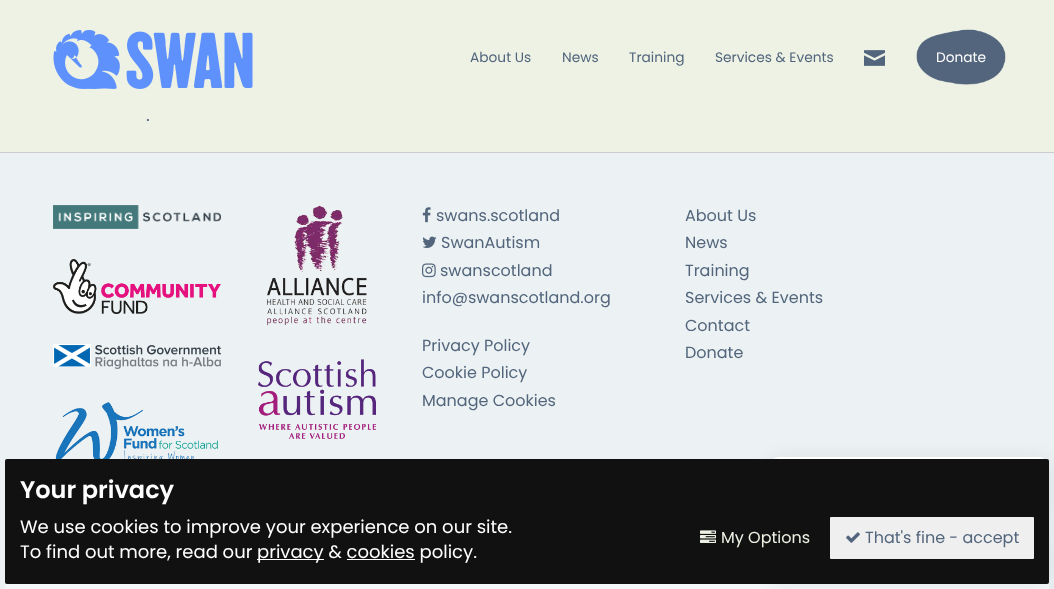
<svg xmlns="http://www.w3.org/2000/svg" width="1054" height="589">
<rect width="100%" height="100%" fill="#edf2e5"/>
<text x="146" y="121" style="font-family:Poppins;font-size:18px;fill:#52657c">.</text>
<rect x="147" y="118" width="2" height="1" fill="#edf2e5"/>
<image x="53" y="30" width="200" height="59" href="media/1.png"/>
<text x="470" y="62" style="font-family:Poppins;font-size:13.75px;fill:#52657c">About Us</text>
<text x="562" y="62" style="font-family:Poppins;font-size:13.75px;fill:#52657c">News</text>
<text x="629" y="62" style="font-family:Poppins;font-size:13.75px;fill:#52657c">Training</text>
<text x="715" y="62" style="font-family:Poppins;font-size:13.75px;fill:#52657c">Services &amp; Events</text>
<image x="864" y="50" width="21" height="16" href="media/2.png"/>
<image x="916" y="29" width="90" height="56" href="media/3.png"/>
<text x="936" y="62" style="font-family:Poppins;font-size:13.75px;fill:#fff">Donate</text>
<rect y="153" width="1054" height="436" fill="#ecf2f3"/>
<rect y="152" width="1054" height="1" fill="#ccc"/>
<image x="53" y="205" width="168" height="24" href="media/4.png"/>
<image x="53" y="259" width="168" height="55" href="media/5.png"/>
<image x="53" y="344" width="168" height="25" href="media/6.png"/>
<image x="55" y="402" width="163" height="57" href="media/7.png"/>
<image x="266" y="205" width="101" height="121" href="media/8.png"/>
<image x="258" y="359" width="118" height="80" href="media/9.png"/>
<image x="422" y="207" width="9" height="16" href="media/10.png"/>
<text x="436" y="221" style="font-family:Poppins;font-size:16px;fill:#52657c">swans.scotland</text>
<image x="422" y="236" width="15" height="12" href="media/11.png"/>
<text x="441" y="248" style="font-family:Poppins;font-size:16px;fill:#52657c">SwanAutism</text>
<image x="422" y="263" width="14" height="15" href="media/12.png"/>
<text x="440" y="276" style="font-family:Poppins;font-size:16px;fill:#52657c">swanscotland</text>
<text x="422" y="303" style="font-family:Poppins;font-size:16px;fill:#52657c">info@swanscotland.org</text>
<text x="422" y="351" style="font-family:Poppins;font-size:16px;fill:#52657c">Privacy Policy</text>
<text x="422" y="378" style="font-family:Poppins;font-size:16px;fill:#52657c">Cookie Policy</text>
<text x="422" y="406" style="font-family:Poppins;font-size:16px;fill:#52657c">Manage Cookies</text>
<text x="685" y="221" style="font-family:Poppins;font-size:16px;fill:#52657c">About Us</text>
<text x="685" y="248" style="font-family:Poppins;font-size:16px;fill:#52657c">News</text>
<text x="685" y="276" style="font-family:Poppins;font-size:16px;fill:#52657c">Training</text>
<text x="685" y="303" style="font-family:Poppins;font-size:16px;fill:#52657c">Services &amp; Events</text>
<text x="685" y="331" style="font-family:Poppins;font-size:16px;fill:#52657c">Contact</text>
<text x="685" y="358" style="font-family:Poppins;font-size:16px;fill:#52657c">Donate</text>
<rect x="769" y="460" width="280" height="67" rx="10" fill="#1111111a" filter="blur(10px)"/>
<rect x="769" y="457" width="280" height="67" rx="10" fill="#fff"/>
<rect x="769" y="532" width="280" height="55" rx="10" fill="#1111111a" filter="blur(10px)"/>
<rect x="5" y="459" width="1044" height="125" rx="2" fill="#111"/>
<text x="20" y="498" style="font-family:Poppins;font-size:24px;font-weight:600;fill:#fff">Your privacy</text>
<text x="20" y="533" style="font-family:Poppins;font-size:18px;fill:#fff">We use cookies to improve your experience on our site.</text>
<text x="20" y="558" style="font-family:Poppins;font-size:18px;fill:#fff">To find out more, read our</text>
<rect x="257" y="559" width="67" height="1" fill="#fff"/>
<text x="257" y="558" style="font-family:Poppins;font-size:18px;fill:#fff">privacy &amp; cookies policy.</text>
<rect x="347" y="559" width="68" height="1" fill="#fff"/>
<image x="700" y="530" width="16" height="13" href="media/13.png"/>
<text x="721" y="543" style="font-family:Poppins;font-size:16px;fill:#edf2e5">My Options</text>
<rect x="830" y="517" width="204" height="42" rx="1" fill="#efefef"/>
<image x="846" y="532" width="14" height="11" href="media/14.png"/>
<text x="865" y="543" style="font-family:Poppins;font-size:16px;fill:#52657c">That's fine - accept</text>
<rect x="5" y="584" width="1044" height="5" fill="#ffffff66"/>
</svg>
